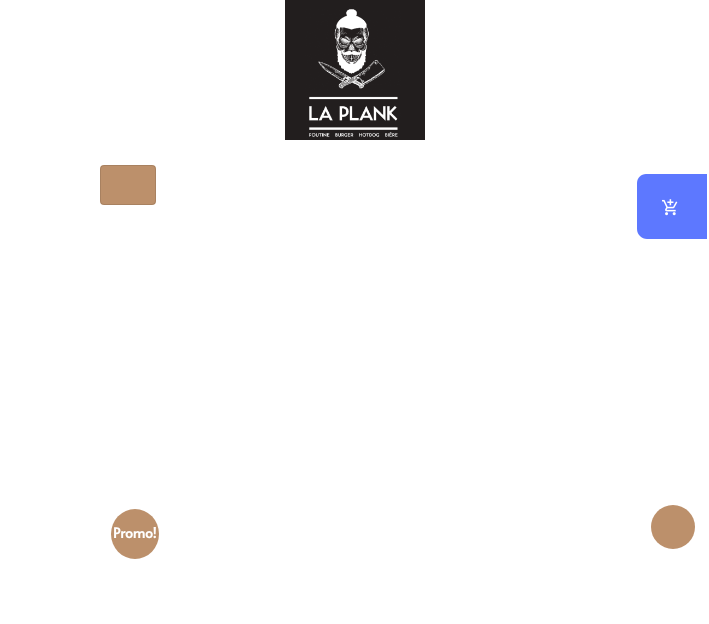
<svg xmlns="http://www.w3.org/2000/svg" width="709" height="624">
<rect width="100%" height="100%" fill="#fff"/>
<image x="285" y="0" width="140" height="140" href="media/1.png"/>
<rect x="100" y="165" width="56" height="40" rx="4" fill="#bc906b"/>
<rect x="100.5" y="165.5" width="55" height="39" rx="3.5" fill="none" stroke="#0000001a"/>
<path d="M646 174h61v65h-60c-5.5 0-10-4.5-10-10v-46c0-5 4-9 9-9z" fill="#5d78ff"/>
<image x="662" y="199" width="16" height="17" href="media/2.png"/>
<ellipse cx="135" cy="534" rx="24" ry="25" fill="#bc906b"/>
<text x="113" y="538" style="font-family:Alata;font-size:14px;font-weight:bold;fill:#fff">Promo!</text>
<circle cx="673" cy="527" r="22" fill="#bc906b"/>
</svg>
